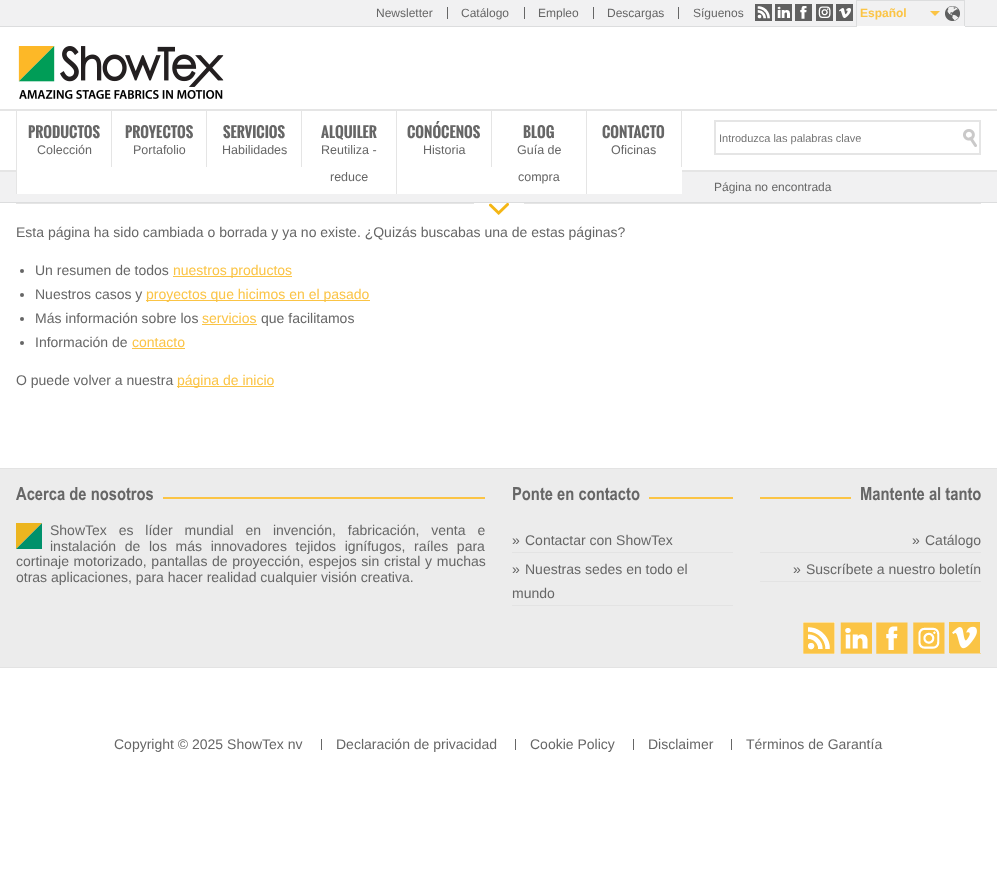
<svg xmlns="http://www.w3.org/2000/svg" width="997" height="872">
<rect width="100%" height="100%" fill="#fff"/>
<rect y="109" width="997" height="2" fill="#e5e5e5"/>
<rect width="997" height="26" fill="#f1f1f2"/>
<rect y="26" width="997" height="1" fill="#dcddde"/>
<rect x="447" y="7" width="1" height="12" fill="#666"/>
<text x="376" y="17" style="font-family:Liberation Sans;font-size:12px;fill:#666">Newsletter</text>
<rect x="524" y="7" width="1" height="12" fill="#666"/>
<text x="461" y="17" style="font-family:Liberation Sans;font-size:12px;fill:#666">Catálogo</text>
<rect x="593" y="7" width="1" height="12" fill="#666"/>
<text x="538" y="17" style="font-family:Liberation Sans;font-size:12px;fill:#666">Empleo</text>
<rect x="678" y="7" width="1" height="12" fill="#666"/>
<text x="607" y="17" style="font-family:Liberation Sans;font-size:12px;fill:#666">Descargas</text>
<text x="693" y="17" style="font-family:Liberation Sans;font-size:12px;fill:#666">Síguenos</text>
<rect x="755" y="4" width="17" height="17" fill="#606060"/>
<image x="757" y="6" width="13" height="13" href="media/1.png"/>
<rect x="775" y="4" width="17" height="17" fill="#606060"/>
<image x="777" y="6" width="13" height="12" href="media/2.png"/>
<rect x="795" y="4" width="17" height="17" fill="#606060"/>
<image x="800" y="6" width="7" height="13" href="media/3.png"/>
<rect x="816" y="4" width="17" height="17" fill="#606060"/>
<image x="818" y="6" width="13" height="12" href="media/4.png"/>
<rect x="836" y="4" width="17" height="17" fill="#606060"/>
<image x="839" y="8" width="12" height="10" href="media/5.png"/>
<rect x="856" width="109" height="1" fill="#dcddde"/>
<rect x="964" width="1" height="27" fill="#dcddde"/>
<rect x="856" y="26" width="109" height="1" fill="#fff"/>
<rect x="856" width="1" height="27" fill="#dcddde"/>
<text x="860" y="17" style="font-family:Liberation Sans;font-size:12px;font-weight:bold;fill:#fbc445">Español</text>
<path d="M930 11h10l-5 5z" fill="#fbc445"/>
<image x="945" y="6" width="15" height="15" href="media/6.png"/>
<image x="18" y="46" width="206" height="53" href="media/7.png"/>
<rect y="170" width="997" height="2" fill="#e5e5e5"/>
<rect y="172" width="997" height="30" fill="#f1f1f2"/>
<rect x="17" y="170" width="665" height="24" fill="#fff"/>
<rect x="16" y="111" width="1" height="83" fill="#e5e5e5"/>
<rect x="111" y="110" width="1" height="57" fill="#e5e5e5"/>
<text x="28" y="138" style="font-family:Oswald;font-size:18px;font-weight:bold;fill:#666">PRODUCTOS</text>
<text x="37" y="154" style="font-family:Liberation Sans;font-size:12.5px;fill:#666">Colección</text>
<rect x="206" y="110" width="1" height="57" fill="#e5e5e5"/>
<text x="125" y="138" style="font-family:Oswald;font-size:18px;font-weight:bold;fill:#666">PROYECTOS</text>
<text x="133" y="154" style="font-family:Liberation Sans;font-size:12.5px;fill:#666">Portafolio</text>
<rect x="301" y="110" width="1" height="57" fill="#e5e5e5"/>
<text x="223" y="138" style="font-family:Oswald;font-size:18px;font-weight:bold;fill:#666">SERVICIOS</text>
<text x="222" y="154" style="font-family:Liberation Sans;font-size:12.5px;fill:#666">Habilidades</text>
<rect x="396" y="110" width="1" height="84" fill="#e5e5e5"/>
<text x="321" y="138" style="font-family:Oswald;font-size:18px;font-weight:bold;fill:#666">ALQUILER</text>
<text x="321" y="154" style="font-family:Liberation Sans;font-size:12.5px;fill:#666">Reutiliza -</text>
<text x="330" y="181" style="font-family:Liberation Sans;font-size:12.5px;fill:#666">reduce</text>
<rect x="491" y="110" width="1" height="57" fill="#e5e5e5"/>
<text x="407" y="138" style="font-family:Oswald;font-size:18px;font-weight:bold;fill:#666">CONÓCENOS</text>
<text x="423" y="154" style="font-family:Liberation Sans;font-size:12.5px;fill:#666">Historia</text>
<rect x="586" y="110" width="1" height="84" fill="#e5e5e5"/>
<text x="523" y="138" style="font-family:Oswald;font-size:18px;font-weight:bold;fill:#666">BLOG</text>
<text x="517" y="154" style="font-family:Liberation Sans;font-size:12.5px;fill:#666">Guía de</text>
<text x="518" y="181" style="font-family:Liberation Sans;font-size:12.5px;fill:#666">compra</text>
<rect x="681" y="110" width="1" height="57" fill="#e5e5e5"/>
<text x="602" y="138" style="font-family:Oswald;font-size:18px;font-weight:bold;fill:#666">CONTACTO</text>
<text x="611" y="154" style="font-family:Liberation Sans;font-size:12.5px;fill:#666">Oficinas</text>
<rect x="715" y="121" width="265" height="33" fill="none" stroke="#e5e5e5" stroke-width="2"/>
<text x="719" y="142" style="font-family:Liberation Sans;font-size:11px;fill:#757575">Introduzca las palabras clave</text>
<image x="963" y="129" width="14" height="18" href="media/8.png"/>
<rect y="202" width="997" height="1" fill="#dcddde"/>
<text x="714" y="191" style="font-family:Liberation Sans;font-size:12px;fill:#666">Página no encontrada</text>
<rect x="16" y="203" width="965" height="1" fill="#e5e5e5"/>
<image x="474" y="203" width="50" height="12" href="media/9.png"/>
<text x="16" y="237" style="font-family:Liberation Sans;font-size:14px;fill:#666">Esta página ha sido cambiada o borrada y ya no existe. ¿Quizás buscabas una de estas páginas?</text>
<circle cx="22" cy="271" r="2" fill="#666"/>
<text x="35" y="275" style="font-family:Liberation Sans;font-size:14px;fill:#666">Un resumen de todos</text>
<rect x="173" y="276" width="119" height="1" fill="#fbc445"/>
<text x="173" y="275" style="font-family:Liberation Sans;font-size:14px;fill:#fbc445">nuestros productos</text>
<circle cx="22" cy="295" r="2" fill="#666"/>
<text x="35" y="299" style="font-family:Liberation Sans;font-size:14px;fill:#666">Nuestros casos y</text>
<rect x="146" y="300" width="224" height="1" fill="#fbc445"/>
<text x="146" y="299" style="font-family:Liberation Sans;font-size:14px;fill:#fbc445">proyectos que hicimos en el pasado</text>
<circle cx="22" cy="319" r="2" fill="#666"/>
<text x="35" y="323" style="font-family:Liberation Sans;font-size:14px;fill:#666">Más información sobre los</text>
<text x="202" y="323" style="font-family:Liberation Sans;font-size:14px;fill:#fbc445">servicios</text>
<rect x="202" y="324" width="55" height="1" fill="#fbc445"/>
<text x="261" y="323" style="font-family:Liberation Sans;font-size:14px;fill:#666">que facilitamos</text>
<circle cx="22" cy="343" r="2" fill="#666"/>
<text x="35" y="347" style="font-family:Liberation Sans;font-size:14px;fill:#666">Información de</text>
<text x="132" y="347" style="font-family:Liberation Sans;font-size:14px;fill:#fbc445">contacto</text>
<rect x="132" y="348" width="53" height="1" fill="#fbc445"/>
<text x="16" y="385" style="font-family:Liberation Sans;font-size:14px;fill:#666">O puede volver a nuestra</text>
<rect x="177" y="386" width="97" height="1" fill="#fbc445"/>
<text x="177" y="385" style="font-family:Liberation Sans;font-size:14px;fill:#fbc445">página de inicio</text>
<rect y="469" width="997" height="198" fill="#ececec"/>
<rect y="468" width="997" height="1" fill="#e3e3e3"/>
<rect y="667" width="997" height="1" fill="#e3e3e3"/>
<text x="16" y="500" style="font-family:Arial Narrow;font-size:18px;font-weight:bold;fill:#666">Acerca de nosotros</text>
<image x="16" y="523" width="26" height="26" href="media/10.png"/>
<text x="50" y="535" word-spacing="8" style="font-family:Liberation Sans;font-size:14px;fill:#666">ShowTex es líder mundial en invención, fabricación, venta e</text>
<text x="50" y="551" word-spacing="4.75" style="font-family:Liberation Sans;font-size:14px;fill:#666">instalación de los más innovadores tejidos ignífugos, raíles para</text>
<text x="16" y="566" word-spacing="0.75" style="font-family:Liberation Sans;font-size:14px;fill:#666">cortinaje motorizado, pantallas de proyección, espejos sin cristal y muchas</text>
<text x="16" y="582" style="font-family:Liberation Sans;font-size:14px;fill:#666">otras aplicaciones, para hacer realidad cualquier visión creativa.</text>
<rect x="163" y="497" width="322" height="2" fill="#fbc445"/>
<text x="512" y="500" style="font-family:Arial Narrow;font-size:18px;font-weight:bold;fill:#666">Ponte en contacto</text>
<rect x="649" y="497" width="84" height="2" fill="#fbc445"/>
<rect x="512" y="552" width="221" height="1" fill="#e3e3e3"/>
<text x="512" y="545" style="font-family:Liberation Sans;font-size:14px;fill:#666">»</text>
<text x="525" y="545" style="font-family:Liberation Sans;font-size:14px;fill:#666">Contactar con ShowTex</text>
<rect x="512" y="605" width="221" height="1" fill="#e3e3e3"/>
<text x="512" y="574" style="font-family:Liberation Sans;font-size:14px;fill:#666">»</text>
<text x="525" y="574" style="font-family:Liberation Sans;font-size:14px;fill:#666">Nuestras sedes en todo el</text>
<text x="512" y="598" style="font-family:Liberation Sans;font-size:14px;fill:#666">mundo</text>
<rect x="760" y="497" width="91" height="2" fill="#fbc445"/>
<text x="860" y="500" style="font-family:Arial Narrow;font-size:18px;font-weight:bold;fill:#666">Mantente al tanto</text>
<rect x="760" y="552" width="221" height="1" fill="#e3e3e3"/>
<text x="912" y="545" style="font-family:Liberation Sans;font-size:14px;fill:#666">»</text>
<text x="925" y="545" style="font-family:Liberation Sans;font-size:14px;fill:#666">Catálogo</text>
<rect x="760" y="581" width="221" height="1" fill="#e3e3e3"/>
<text x="793" y="574" style="font-family:Liberation Sans;font-size:14px;fill:#666">»</text>
<text x="806" y="574" style="font-family:Liberation Sans;font-size:14px;fill:#666">Suscríbete a nuestro boletín</text>
<image x="803" y="622" width="32" height="32" href="media/11.png"/>
<image x="840" y="622" width="32" height="32" href="media/12.png"/>
<image x="876" y="622" width="32" height="32" href="media/13.png"/>
<image x="913" y="622" width="32" height="32" href="media/14.png"/>
<image x="949" y="622" width="32" height="32" href="media/15.png"/>
<text x="114" y="749" style="font-family:Liberation Sans;font-size:14px;fill:#666">Copyright © 2025 ShowTex nv</text>
<rect x="321" y="739" width="1" height="11" fill="#666"/>
<text x="336" y="749" style="font-family:Liberation Sans;font-size:14px;fill:#666">Declaración de privacidad</text>
<rect x="515" y="739" width="1" height="11" fill="#666"/>
<text x="530" y="749" style="font-family:Liberation Sans;font-size:14px;fill:#666">Cookie Policy</text>
<rect x="633" y="739" width="1" height="11" fill="#666"/>
<text x="648" y="749" style="font-family:Liberation Sans;font-size:14px;fill:#666">Disclaimer</text>
<rect x="731" y="739" width="1" height="11" fill="#666"/>
<text x="746" y="749" style="font-family:Liberation Sans;font-size:14px;fill:#666">Términos de Garantía</text>
</svg>
